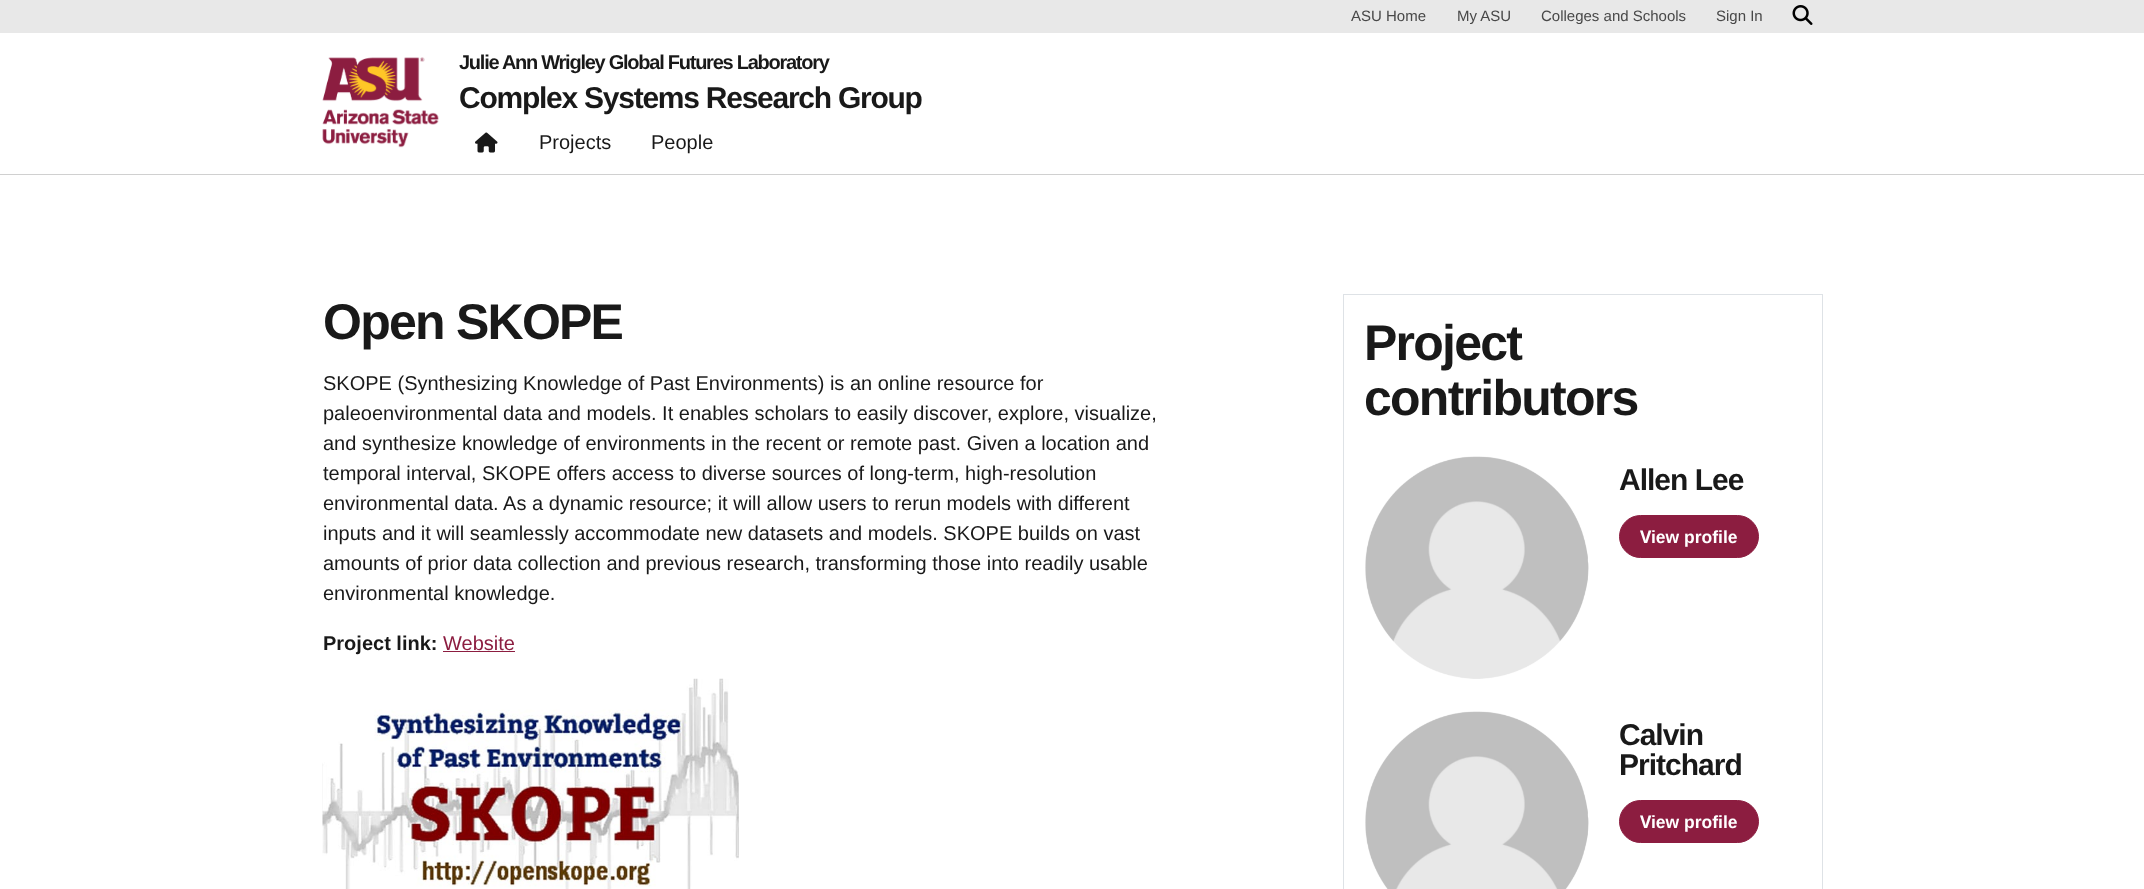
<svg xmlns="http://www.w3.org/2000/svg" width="2144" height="889">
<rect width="100%" height="100%" fill="#fff"/>
<rect width="2144" height="33" fill="#e8e8e8"/>
<text x="1351" y="21" style="font-family:Liberation Sans;font-size:15px;fill:#484848">ASU Home</text>
<text x="1457" y="21" style="font-family:Liberation Sans;font-size:15px;fill:#484848">My ASU</text>
<text x="1541" y="21" style="font-family:Liberation Sans;font-size:15px;fill:#484848">Colleges and Schools</text>
<text x="1716" y="21" style="font-family:Liberation Sans;font-size:15px;fill:#484848">Sign In</text>
<image x="1792" y="5" width="21" height="20" href="media/1.png"/>
<rect y="174" width="2144" height="1" fill="#d0d0d0"/>
<image x="322" y="57" width="117" height="91" href="media/2.png"/>
<text x="459" y="69" style="font-family:Liberation Sans;font-size:20px;font-weight:bold;letter-spacing:-1.25px;fill:#191919">Julie Ann Wrigley Global Futures Laboratory</text>
<text x="459" y="108" style="font-family:Liberation Sans;font-size:30px;font-weight:bold;letter-spacing:-1.25px;fill:#191919">Complex Systems Research Group</text>
<image x="475" y="132" width="23" height="21" href="media/3.png"/>
<text x="539" y="149" style="font-family:Liberation Sans;font-size:20px;fill:#191919">Projects</text>
<text x="651" y="149" style="font-family:Liberation Sans;font-size:20px;fill:#191919">People</text>
<text x="323" y="339" style="font-family:Liberation Sans;font-size:50px;font-weight:bold;letter-spacing:-1.75px;fill:#191919">Open SKOPE</text>
<text x="323" y="390" style="font-family:Liberation Sans;font-size:20px;fill:#191919">SKOPE (Synthesizing Knowledge of Past Environments) is an online resource for</text>
<text x="323" y="420" style="font-family:Liberation Sans;font-size:20px;fill:#191919">paleoenvironmental data and models. It enables scholars to easily discover, explore, visualize,</text>
<text x="323" y="450" style="font-family:Liberation Sans;font-size:20px;fill:#191919">and synthesize knowledge of environments in the recent or remote past. Given a location and</text>
<text x="323" y="480" style="font-family:Liberation Sans;font-size:20px;fill:#191919">temporal interval, SKOPE offers access to diverse sources of long-term, high-resolution</text>
<text x="323" y="510" style="font-family:Liberation Sans;font-size:20px;fill:#191919">environmental data. As a dynamic resource; it will allow users to rerun models with different</text>
<text x="323" y="540" style="font-family:Liberation Sans;font-size:20px;fill:#191919">inputs and it will seamlessly accommodate new datasets and models. SKOPE builds on vast</text>
<text x="323" y="570" style="font-family:Liberation Sans;font-size:20px;fill:#191919">amounts of prior data collection and previous research, transforming those into readily usable</text>
<text x="323" y="600" style="font-family:Liberation Sans;font-size:20px;fill:#191919">environmental knowledge.</text>
<text x="323" y="650" style="font-family:Liberation Sans;font-size:20px;font-weight:bold;fill:#191919">Project link:</text>
<text x="443" y="650" style="font-family:Liberation Sans;font-size:20px;fill:#8c1d40">Website</text>
<rect x="443" y="651" width="72" height="1" fill="#8c1d40"/>
<image x="322" y="678" width="417" height="211" href="media/4.png"/>
<rect x="1343.5" y="294.5" width="479" height="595" fill="none" stroke="#dee2e6"/>
<text x="1364" y="360" style="font-family:Liberation Sans;font-size:50px;font-weight:bold;letter-spacing:-1.75px;fill:#191919">Project</text>
<text x="1364" y="415" style="font-family:Liberation Sans;font-size:50px;font-weight:bold;letter-spacing:-1.75px;fill:#191919">contributors</text>
<image x="1365" y="456" width="224" height="223" href="media/5.png"/>
<text x="1619" y="490" style="font-family:Liberation Sans;font-size:30px;font-weight:bold;letter-spacing:-1px;fill:#191919">Allen Lee</text>
<rect x="1619.5" y="515.5" width="139" height="42" rx="21" fill="#8c1d40" stroke="#8c1d40"/>
<text x="1640" y="543" style="font-family:Noto Sans;font-size:17.5px;font-weight:bold;fill:#fff">V</text>
<text x="1651" y="543" style="font-family:Liberation Sans;font-size:17.5px;font-weight:bold;fill:#fff">iew profile</text>
<image x="1365" y="711" width="224" height="178" href="media/6.png"/>
<text x="1619" y="745" style="font-family:Liberation Sans;font-size:30px;font-weight:bold;letter-spacing:-1px;fill:#191919">Calvin</text>
<text x="1619" y="775" style="font-family:Liberation Sans;font-size:30px;font-weight:bold;letter-spacing:-1px;fill:#191919">Pritchard</text>
<rect x="1619.5" y="800.5" width="139" height="42" rx="21" fill="#8c1d40" stroke="#8c1d40"/>
<text x="1640" y="828" style="font-family:Noto Sans;font-size:17.5px;font-weight:bold;fill:#fff">V</text>
<text x="1651" y="828" style="font-family:Liberation Sans;font-size:17.5px;font-weight:bold;fill:#fff">iew profile</text>
</svg>
